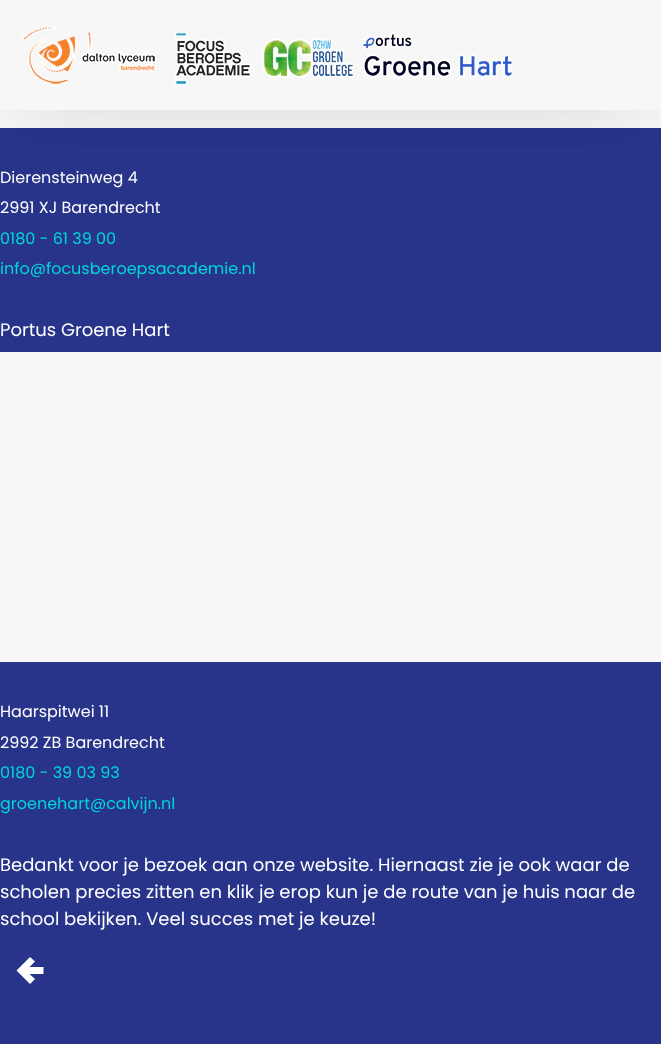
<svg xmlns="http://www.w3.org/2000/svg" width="661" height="1044">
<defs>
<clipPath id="clip1"><rect x="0" y="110" width="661" height="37"/></clipPath>
</defs>
<rect width="100%" height="100%" fill="#27348a"/>
<rect width="661" height="128" fill="#f7f7f7"/>
<g clip-path="url(#clip1)">
<rect x="20" y="20" width="621" height="70" fill="#00000033" filter="blur(45px)"/>
</g>
<image x="22" y="25" width="492" height="61" href="media/1.png"/>
<text x="0" y="183" style="font-family:Poppins;font-size:16px;fill:#fff">Dierensteinweg 4</text>
<text x="0" y="213" style="font-family:Poppins;font-size:16px;fill:#fff">2991 XJ Barendrecht</text>
<text x="0" y="244" style="font-family:Poppins;font-size:16px;fill:#00d8d8">0180 - 61 39 00</text>
<text x="0" y="274" style="font-family:Poppins;font-size:16px;fill:#00d8d8">info@focusberoepsacademie.nl</text>
<text x="0" y="336" style="font-family:Poppins;font-size:18px;fill:#fff">Portus Groene Hart</text>
<rect y="352" width="661" height="310" fill="#f7f7f7"/>
<text x="0" y="717" style="font-family:Poppins;font-size:16px;fill:#fff">Haarspitwei 11</text>
<text x="0" y="748" style="font-family:Poppins;font-size:16px;fill:#fff">2992 ZB Barendrecht</text>
<text x="0" y="778" style="font-family:Poppins;font-size:16px;fill:#00d8d8">0180 - 39 03 93</text>
<text x="0" y="809" style="font-family:Poppins;font-size:16px;fill:#00d8d8">groenehart@calvijn.nl</text>
<text x="0" y="871" style="font-family:Poppins;font-size:18px;fill:#fff">Bedankt voor je bezoek aan onze website. Hiernaast zie je ook waar de</text>
<text x="0" y="898" style="font-family:Poppins;font-size:18px;fill:#fff">scholen precies zitten en klik je erop kun je de route van je huis naar de</text>
<text x="0" y="925" style="font-family:Poppins;font-size:18px;fill:#fff">school bekijken. Veel succes met je keuze!</text>
<path d="M30 984l-13.5-13.5l13.5-13.5l5 4.5l-5.5 5.5h14v7h-14l5.5 5z" fill="#fff"/>
</svg>
